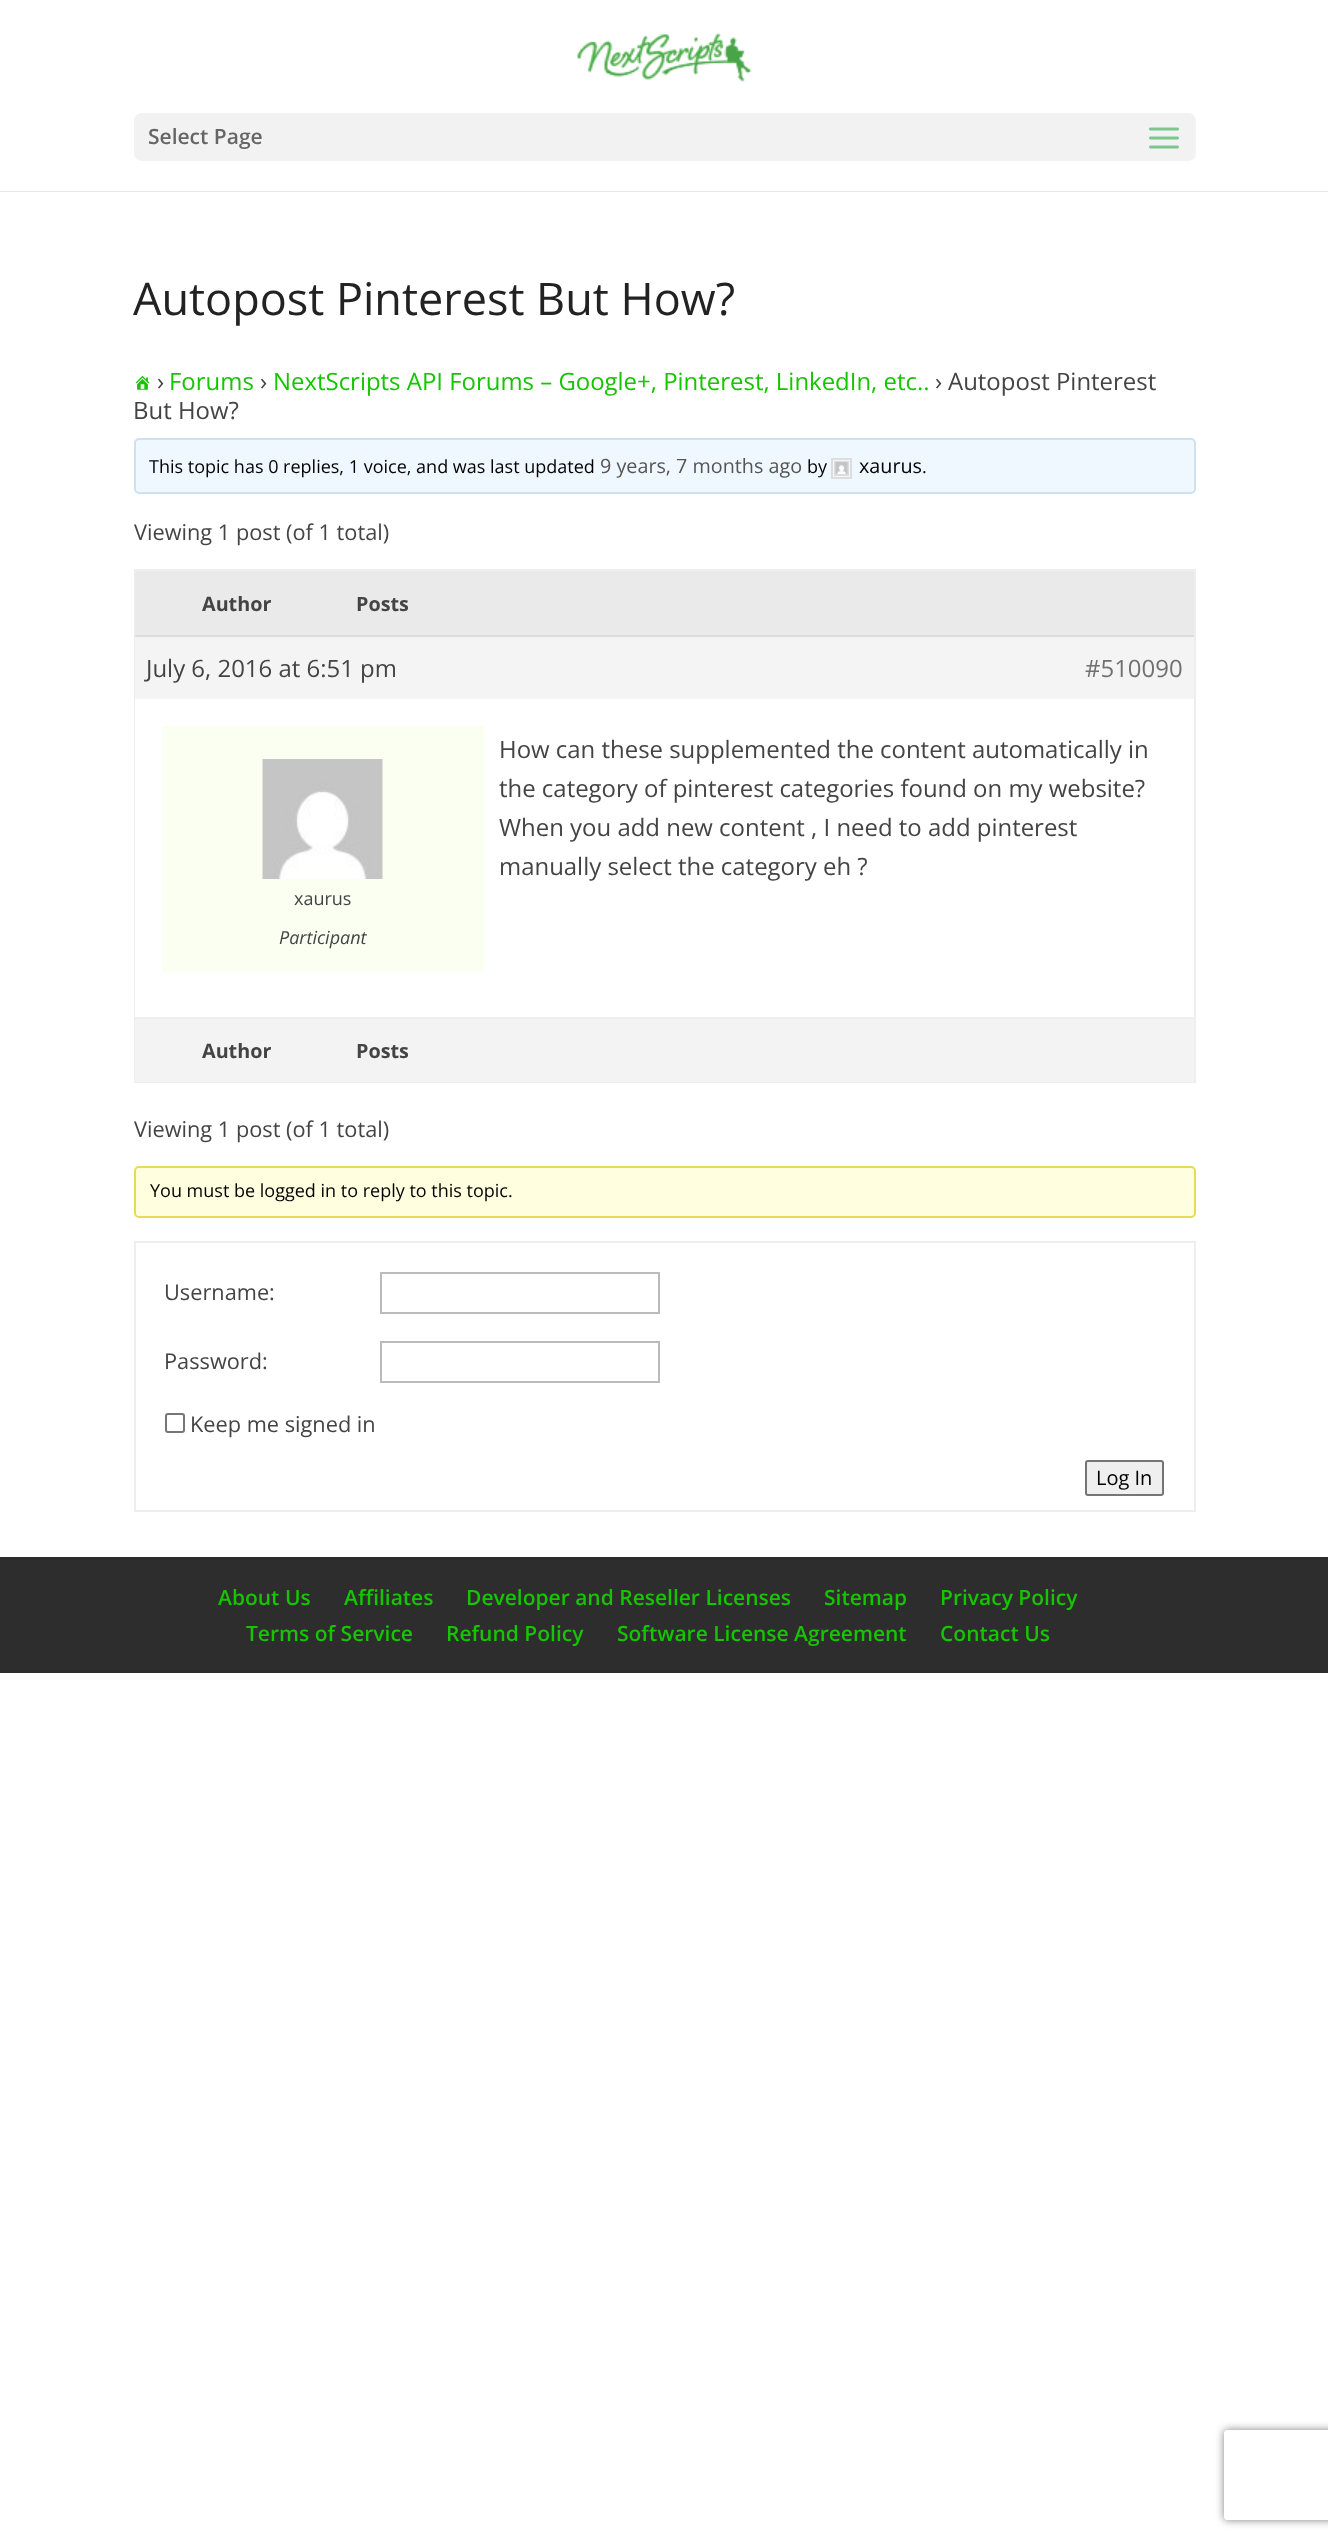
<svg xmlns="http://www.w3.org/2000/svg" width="1328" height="2540">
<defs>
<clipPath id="clip1"><path d="M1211 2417h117v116h-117zm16 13h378c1.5 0 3 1.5 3 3v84c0 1.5-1.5 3-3 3h-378c-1.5 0-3-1.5-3-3v-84c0-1.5 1.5-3 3-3z" clip-rule="evenodd"/></clipPath>
</defs>
<rect width="100%" height="100%" fill="#fff"/>
<rect y="191" width="1328" height="1" fill="#e6e6e6"/>
<image x="577" y="32" width="175" height="50" href="media/1.png"/>
<rect x="134" y="113" width="1062" height="48" rx="8" fill="#f2f2f2"/>
<text x="148" y="144" style="font-family:Open Sans;font-size:21px;font-weight:600;fill:#666">Select Page</text>
<image x="1149" y="127" width="30" height="22" href="media/2.png"/>
<text x="133" y="315" style="font-family:Open Sans;font-size:45px;fill:#222">Autopost Pinterest But How?</text>
<image x="135" y="375" width="15" height="15" href="media/3.png"/>
<text x="157" y="390" style="font-family:Open Sans;font-size:23.95px;fill:#444">›</text>
<text x="169" y="390" style="font-family:Open Sans;font-size:23.95px;fill:#16c400">Forums</text>
<text x="260" y="390" style="font-family:Open Sans;font-size:23.95px;fill:#444">›</text>
<text x="273" y="390" style="font-family:Open Sans;font-size:23.95px;fill:#16c400">NextScripts API Forums – Google+, Pinterest, LinkedIn, etc..</text>
<text x="935" y="390" style="font-family:Open Sans;font-size:23.95px;fill:#444">›</text>
<text x="948" y="390" style="font-family:Open Sans;font-size:23.95px;fill:#444">Autopost Pinterest</text>
<text x="133" y="419" style="font-family:Open Sans;font-size:23.95px;fill:#444">But How?</text>
<rect x="135" y="439" width="1060" height="54" rx="4" fill="#f0f8ff" stroke="#cee1ef" stroke-width="2"/>
<text x="149" y="473" style="font-family:Open Sans;font-size:18px;fill:#000">This topic has 0 replies, 1 voice, and was last updated</text>
<text x="600" y="473" style="font-family:Open Sans;font-size:19.75px;fill:#555">9 years, 7 months ago</text>
<text x="807" y="473" style="font-family:Open Sans;font-size:18px;fill:#000">by</text>
<rect x="832" y="459" width="19" height="19" fill="none" stroke="#ddd" stroke-width="2"/>
<rect x="835" y="462" width="13" height="13" fill="none" stroke="#ddd" stroke-width="2"/>
<image x="835" y="462" width="13" height="12" href="media/4.png"/>
<text x="859" y="473" style="font-family:Open Sans;font-size:19.75px;fill:#000">xaurus</text>
<text x="922" y="473" style="font-family:Open Sans;font-size:18px;fill:#000">.</text>
<text x="134" y="540" style="font-family:Open Sans;font-size:21.75px;fill:#444">Viewing 1 post (of 1 total)</text>
<rect x="135" y="570" width="1060" height="512" fill="none" stroke="#eee" stroke-width="2"/>
<rect x="135" y="572" width="1059" height="63" fill="#eaeaea"/>
<rect x="135" y="571" width="1059" height="1" fill="#eee"/>
<text x="202" y="611" style="font-family:Open Sans;font-size:19.75px;font-weight:bold;fill:#444">Author</text>
<text x="356" y="611" style="font-family:Open Sans;font-size:19.75px;font-weight:bold;fill:#444">Posts</text>
<rect x="135" y="637" width="1059" height="62" fill="#f4f4f4"/>
<rect x="135" y="635" width="1059" height="2" fill="#ddd"/>
<text x="146" y="677" style="font-family:Open Sans;font-size:23.95px;fill:#444">July 6, 2016 at 6:51 pm</text>
<text x="1085" y="677" style="font-family:Open Sans;font-size:23.95px;fill:#707070">#510090</text>
<rect x="135" y="699" width="1" height="318" fill="#fff"/>
<text x="499" y="758" style="font-family:Open Sans;font-size:23.95px;fill:#444">How can these supplemented the content automatically in</text>
<text x="499" y="797" style="font-family:Open Sans;font-size:23.95px;fill:#444">the category of pinterest categories found on my website?</text>
<text x="499" y="836" style="font-family:Open Sans;font-size:23.95px;fill:#444">When you add new content , I need to add pinterest</text>
<text x="499" y="875" style="font-family:Open Sans;font-size:23.95px;fill:#444">manually select the category eh ?</text>
<rect x="162" y="726" width="323" height="246" fill="#fafff1"/>
<image x="262" y="759" width="121" height="120" href="media/5.png"/>
<text x="294" y="905" style="font-family:Open Sans;font-size:18px;fill:#444">xaurus</text>
<text x="279" y="944" style="font-family:Open Sans;font-size:18px;font-style:italic;fill:#444">Participant</text>
<rect x="135" y="1019" width="1059" height="63" fill="#f3f3f3"/>
<rect x="135" y="1017" width="1059" height="2" fill="#eee"/>
<text x="202" y="1058" style="font-family:Open Sans;font-size:19.75px;font-weight:bold;fill:#444">Author</text>
<text x="356" y="1058" style="font-family:Open Sans;font-size:19.75px;font-weight:bold;fill:#444">Posts</text>
<text x="134" y="1137" style="font-family:Open Sans;font-size:21.75px;fill:#444">Viewing 1 post (of 1 total)</text>
<rect x="135" y="1167" width="1060" height="50" rx="4" fill="#ffffe0" stroke="#e6db55" stroke-width="2"/>
<text x="150" y="1197" style="font-family:Open Sans;font-size:18px;fill:#000">You must be logged in to reply to this topic.</text>
<rect x="135" y="1242" width="1060" height="269" fill="none" stroke="#eee" stroke-width="2"/>
<text x="164" y="1300" style="font-family:Open Sans;font-size:21.75px;fill:#444">Username:</text>
<rect x="381" y="1273" width="278" height="40" fill="none" stroke="#bbb" stroke-width="2"/>
<text x="164" y="1369" style="font-family:Open Sans;font-size:21.75px;fill:#444">Password:</text>
<rect x="381" y="1342" width="278" height="40" fill="none" stroke="#bbb" stroke-width="2"/>
<rect x="166" y="1414" width="18" height="18" rx="2" fill="none" stroke="#767676" stroke-width="2"/>
<text x="190" y="1432" style="font-family:Open Sans;font-size:21.75px;fill:#444">Keep me signed in</text>
<rect x="1086" y="1461" width="77" height="34" rx="2" fill="#efefef" stroke="#767676" stroke-width="2"/>
<text x="1096" y="1485" style="font-family:Open Sans;font-size:20px;fill:#000">Log In</text>
<rect y="1557" width="1328" height="116" fill="#2d2d2d"/>
<text x="218" y="1605" style="font-family:Open Sans;font-size:21px;font-weight:600;fill:#16c400">About Us</text>
<text x="344" y="1605" style="font-family:Open Sans;font-size:21px;font-weight:600;fill:#16c400">Affiliates</text>
<text x="466" y="1605" style="font-family:Open Sans;font-size:21px;font-weight:600;fill:#16c400">Developer and Reseller Licenses</text>
<text x="824" y="1605" style="font-family:Open Sans;font-size:21px;font-weight:600;fill:#16c400">Sitemap</text>
<text x="940" y="1605" style="font-family:Open Sans;font-size:21px;font-weight:600;fill:#16c400">Privacy Policy</text>
<text x="246" y="1641" style="font-family:Open Sans;font-size:21px;font-weight:600;fill:#16c400">Terms of Service</text>
<text x="446" y="1641" style="font-family:Open Sans;font-size:21px;font-weight:600;fill:#16c400">Refund Policy</text>
<text x="617" y="1641" style="font-family:Open Sans;font-size:21px;font-weight:600;fill:#16c400">Software License Agreement</text>
<text x="940" y="1641" style="font-family:Open Sans;font-size:21px;font-weight:600;fill:#16c400">Contact Us</text>
<g clip-path="url(#clip1)">
<rect x="1224" y="2430" width="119" height="90" rx="3" fill="#808080" filter="blur(4px)"/>
</g>
</svg>
